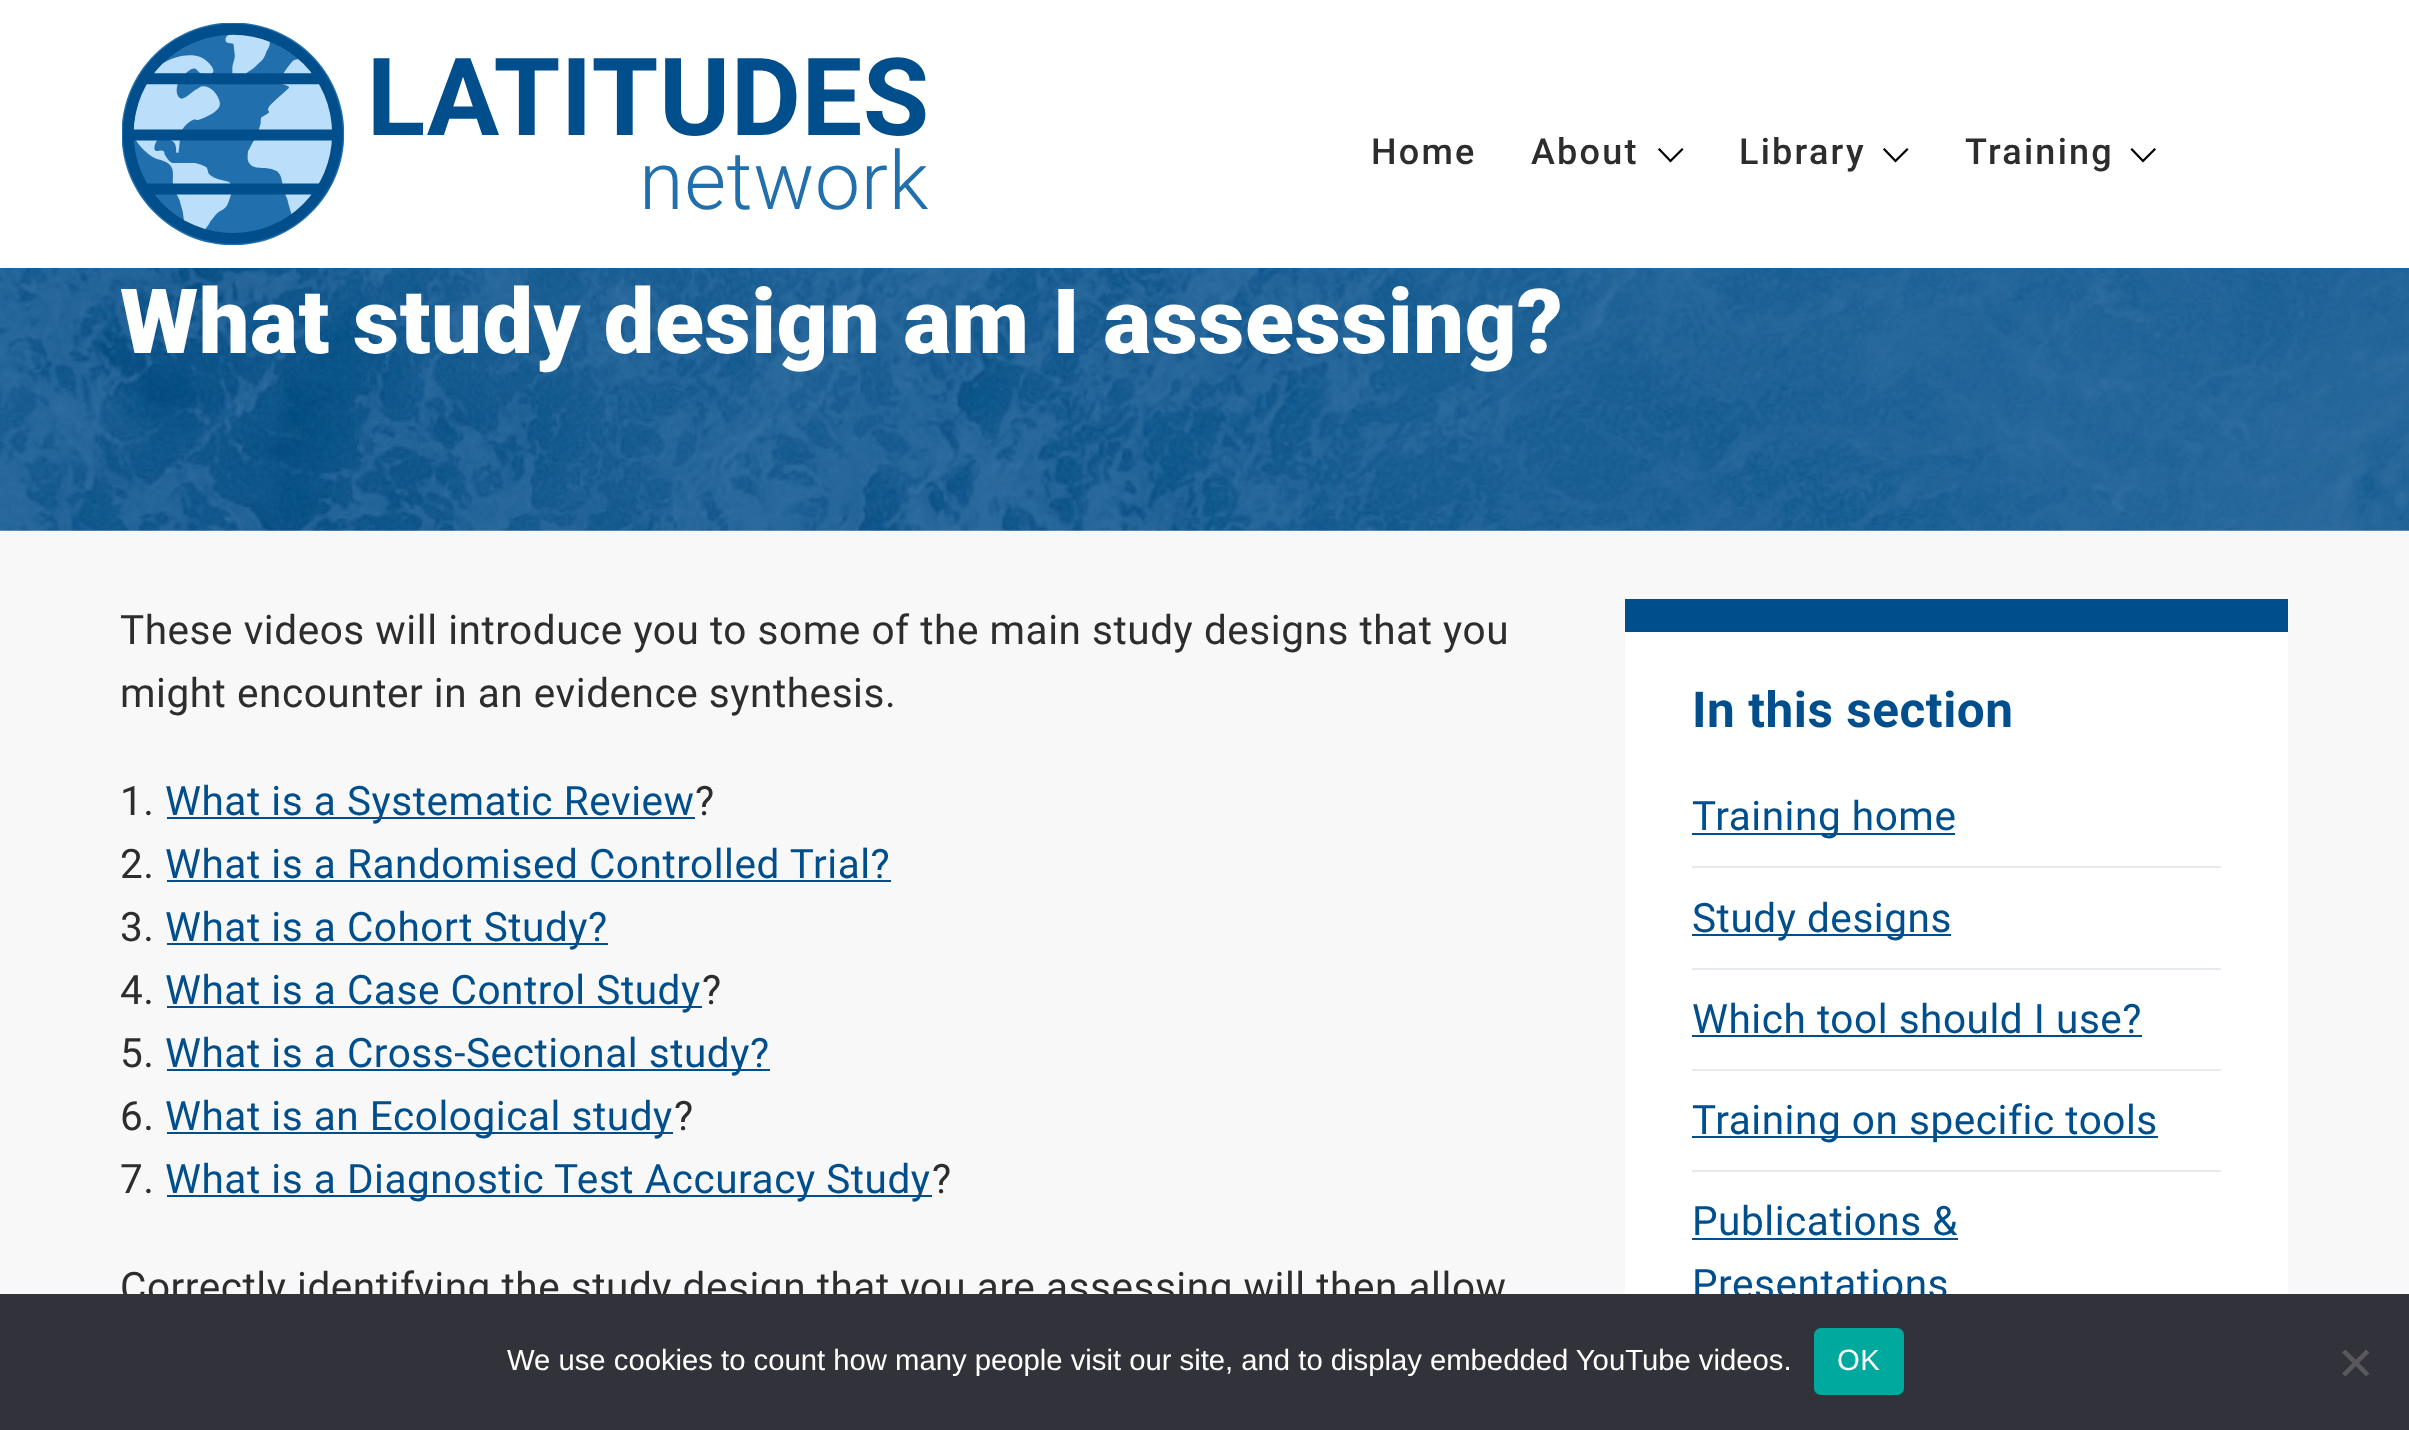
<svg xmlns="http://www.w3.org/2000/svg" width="2409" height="1430">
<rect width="100%" height="100%" fill="#f8f8f8"/>
<rect width="2409" height="268" fill="#fff"/>
<image x="122" y="23" width="806" height="222" href="media/1.png"/>
<text x="1371" y="164" style="font-family:Roboto;font-size:36px;font-weight:500;letter-spacing:2.25px;fill:#2d2d2d">Home</text>
<path d="M1659.5 149.5l11 11.5m11.5-11.5l-11.5 11.5" fill="none" stroke="#000" stroke-width="2.2" stroke-linecap="square"/>
<text x="1531" y="164" style="font-family:Roboto;font-size:36px;font-weight:500;letter-spacing:2.25px;fill:#2d2d2d">About</text>
<path d="M1884.5 149.5l11 11.5m11.5-11.5l-11.5 11.5" fill="none" stroke="#000" stroke-width="2.2" stroke-linecap="square"/>
<text x="1739" y="164" style="font-family:Roboto;font-size:36px;font-weight:500;letter-spacing:2.25px;fill:#2d2d2d">Library</text>
<path d="M2132 149.5l11 11.5m11.5-11.5l-11.5 11.5" fill="none" stroke="#000" stroke-width="2.2" stroke-linecap="square"/>
<text x="1965" y="164" style="font-family:Roboto;font-size:36px;font-weight:500;letter-spacing:2.25px;fill:#2d2d2d">Training</text>
<image x="0" y="268" width="2409" height="263" href="media/2.png"/>
<text x="120" y="353" style="font-family:Roboto;font-size:90px;font-weight:900;letter-spacing:0.55px;fill:#fff">What study design am I assessing?</text>
<text x="120" y="644" style="font-family:Roboto;font-size:40.5px;letter-spacing:0.55px;fill:#2d2d2d">These videos will introduce you to some of the main study designs that you</text>
<text x="120" y="707" style="font-family:Roboto;font-size:40.5px;letter-spacing:0.55px;fill:#2d2d2d">might encounter in an evidence synthesis.</text>
<text x="120" y="815" style="font-family:Roboto;font-size:40.5px;letter-spacing:0.55px;fill:#2d2d2d">1.</text>
<rect x="167" y="817" width="528" height="2" fill="#014e8c"/>
<text x="165" y="815" style="font-family:Roboto;font-size:40.5px;letter-spacing:0.55px;fill:#014e8c">What is a Systematic Review</text>
<text x="695" y="815" style="font-family:Roboto;font-size:40.5px;letter-spacing:0.55px;fill:#2d2d2d">?</text>
<text x="120" y="878" style="font-family:Roboto;font-size:40.5px;letter-spacing:0.55px;fill:#2d2d2d">2.</text>
<text x="165" y="878" style="font-family:Roboto;font-size:40.5px;letter-spacing:0.55px;fill:#014e8c">What is a Randomised Controlled Trial?</text>
<rect x="167" y="880" width="724" height="2" fill="#014e8c"/>
<text x="120" y="941" style="font-family:Roboto;font-size:40.5px;letter-spacing:0.55px;fill:#2d2d2d">3.</text>
<rect x="167" y="943" width="441" height="2" fill="#014e8c"/>
<text x="165" y="941" style="font-family:Roboto;font-size:40.5px;letter-spacing:0.55px;fill:#014e8c">What is a Cohort Study?</text>
<text x="120" y="1004" style="font-family:Roboto;font-size:40.5px;letter-spacing:0.55px;fill:#2d2d2d">4.</text>
<rect x="167" y="1006" width="535" height="2" fill="#014e8c"/>
<text x="165" y="1004" style="font-family:Roboto;font-size:40.5px;letter-spacing:0.55px;fill:#014e8c">What is a Case Control Study</text>
<text x="702" y="1004" style="font-family:Roboto;font-size:40.5px;letter-spacing:0.55px;fill:#2d2d2d">?</text>
<text x="120" y="1067" style="font-family:Roboto;font-size:40.5px;letter-spacing:0.55px;fill:#2d2d2d">5.</text>
<rect x="167" y="1069" width="603" height="2" fill="#014e8c"/>
<text x="165" y="1067" style="font-family:Roboto;font-size:40.5px;letter-spacing:0.55px;fill:#014e8c">What is a Cross-Sectional study?</text>
<text x="120" y="1130" style="font-family:Roboto;font-size:40.5px;letter-spacing:0.55px;fill:#2d2d2d">6.</text>
<rect x="167" y="1132" width="506" height="2" fill="#014e8c"/>
<text x="165" y="1130" style="font-family:Roboto;font-size:40.5px;letter-spacing:0.55px;fill:#014e8c">What is an Ecological study</text>
<text x="674" y="1130" style="font-family:Roboto;font-size:40.5px;letter-spacing:0.55px;fill:#2d2d2d">?</text>
<text x="120" y="1193" style="font-family:Roboto;font-size:40.5px;letter-spacing:0.55px;fill:#2d2d2d">7.</text>
<rect x="167" y="1195" width="765" height="2" fill="#014e8c"/>
<text x="165" y="1193" style="font-family:Roboto;font-size:40.5px;letter-spacing:0.55px;fill:#014e8c">What is a Diagnostic Test Accuracy Study</text>
<text x="932" y="1193" style="font-family:Roboto;font-size:40.5px;letter-spacing:0.55px;fill:#2d2d2d">?</text>
<text x="120" y="1301" style="font-family:Roboto;font-size:40.5px;letter-spacing:0.55px;fill:#2d2d2d">Correctly identifying the study design that you are assessing will then allow</text>
<rect x="1625" y="632" width="663" height="662" fill="#fff"/>
<rect x="1625" y="599" width="663" height="33" fill="#014e8c"/>
<text x="1692" y="727" style="font-family:Roboto;font-size:49.5px;font-weight:bold;letter-spacing:0.55px;fill:#014e8c">In this section</text>
<rect x="1692" y="866" width="529" height="2" fill="#e6eaef"/>
<rect x="1692" y="833" width="263" height="2" fill="#014e8c"/>
<text x="1692" y="830" style="font-family:Roboto;font-size:40.5px;letter-spacing:0.55px;fill:#014e8c">Training home</text>
<rect x="1692" y="968" width="529" height="2" fill="#e6eaef"/>
<rect x="1692" y="934" width="259" height="2" fill="#014e8c"/>
<text x="1692" y="932" style="font-family:Roboto;font-size:40.5px;letter-spacing:0.55px;fill:#014e8c">Study designs</text>
<rect x="1692" y="1069" width="529" height="2" fill="#e6eaef"/>
<text x="1692" y="1033" style="font-family:Roboto;font-size:40.5px;letter-spacing:0.55px;fill:#014e8c">Which tool should I use?</text>
<rect x="1692" y="1035" width="450" height="2" fill="#014e8c"/>
<rect x="1692" y="1170" width="529" height="2" fill="#e6eaef"/>
<rect x="1692" y="1136" width="466" height="2" fill="#014e8c"/>
<text x="1692" y="1134" style="font-family:Roboto;font-size:40.5px;letter-spacing:0.55px;fill:#014e8c">Training on specific tools</text>
<text x="1692" y="1235" style="font-family:Roboto;font-size:40.5px;letter-spacing:0.55px;fill:#014e8c">Publications &amp;</text>
<rect x="1692" y="1238" width="266" height="2" fill="#014e8c"/>
<text x="1692" y="1298" style="font-family:Roboto;font-size:40.5px;letter-spacing:0.55px;fill:#014e8c">Presentations</text>
<rect y="1294" width="2409" height="136" fill="#32323a"/>
<text x="507" y="1370" style="font-family:Liberation Sans;font-size:29.25px;fill:#fff">We use cookies to count how many people visit our site, and to display embedded YouTube videos.</text>
<rect x="1814" y="1328" width="90" height="67" rx="7" fill="#00a99d"/>
<text x="1837" y="1370" style="font-family:Liberation Sans;font-size:29.25px;letter-spacing:0.55px;fill:#fff">OK</text>
<path d="M2366 1349.5l3.5 3l-24 24l-3.5-3z" fill="#59595d"/>
<path d="M2342 1352.5l3.5-3l24 24l-3.5 3z" fill="#59595d"/>
</svg>
